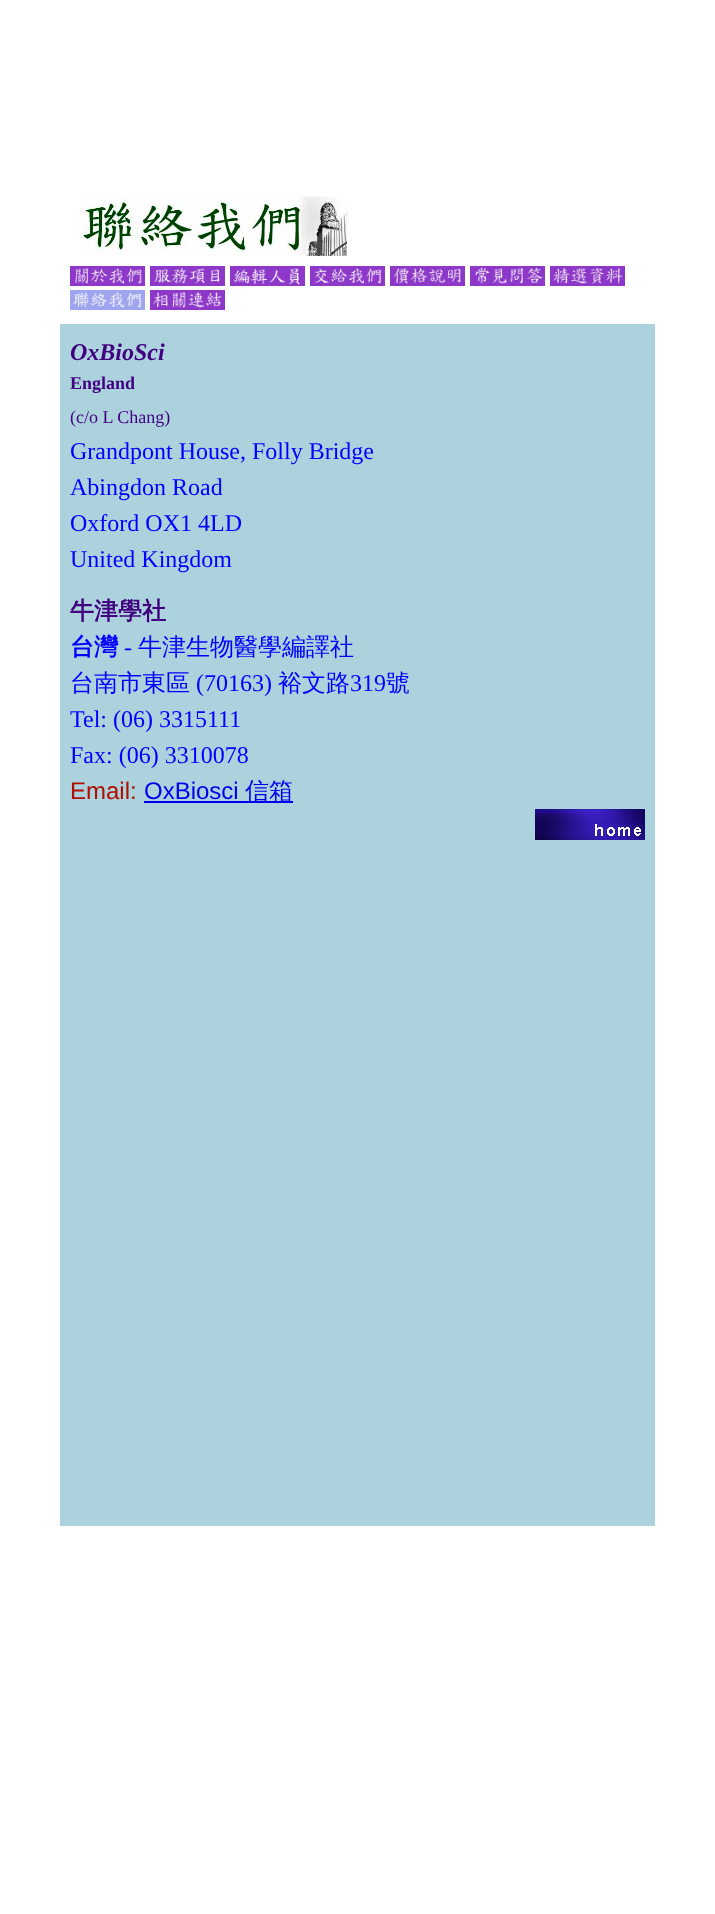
<svg xmlns="http://www.w3.org/2000/svg" width="715" height="1914">
<rect width="100%" height="100%" fill="#fff"/>
<image x="79" y="196" width="268" height="60" href="media/1.png"/>
<image x="70" y="266" width="75" height="20" href="media/2.png"/>
<image x="150" y="266" width="75" height="20" href="media/3.png"/>
<image x="230" y="266" width="75" height="20" href="media/4.png"/>
<image x="310" y="266" width="75" height="20" href="media/5.png"/>
<image x="390" y="266" width="75" height="20" href="media/6.png"/>
<image x="470" y="266" width="75" height="20" href="media/7.png"/>
<image x="550" y="266" width="75" height="20" href="media/8.png"/>
<image x="70" y="290" width="75" height="20" href="media/9.png"/>
<image x="150" y="290" width="75" height="20" href="media/10.png"/>
<rect x="60" y="324" width="595" height="1202" fill="#acd2de"/>
<text x="70" y="360" style="font-family:Liberation Serif;font-size:24px;font-weight:bold;font-style:italic;fill:#400080">OxBioSci</text>
<text x="70" y="389" style="font-family:Liberation Serif;font-size:18px;font-weight:bold;fill:#400080">England</text>
<text x="70" y="423" style="font-family:Liberation Serif;font-size:18px;fill:#400080">(c/o L Chang)</text>
<text x="70" y="459" style="font-family:Liberation Serif;font-size:24px;fill:#00f">Grandpont House, Folly Bridge</text>
<text x="70" y="495" style="font-family:Liberation Serif;font-size:24px;fill:#00f">Abingdon Road</text>
<text x="70" y="531" style="font-family:Liberation Serif;font-size:24px;fill:#00f">Oxford OX1 4LD</text>
<text x="70" y="567" style="font-family:Liberation Serif;font-size:24px;fill:#00f">United Kingdom</text>
<text x="70" y="619" style="font-family:WenQuanYi Zen Hei;font-size:24px;font-weight:bold;fill:#400080">牛津學社</text>
<text x="70" y="655" style="font-family:WenQuanYi Zen Hei;font-size:24px;font-weight:bold;fill:#00f">台灣</text>
<text x="124" y="655" style="font-family:Liberation Serif;font-size:24px;fill:#00f">-</text>
<text x="138" y="655" style="font-family:WenQuanYi Zen Hei;font-size:24px;font-weight:500;fill:#00f">牛津生物醫學編譯社</text>
<text x="70" y="691" style="font-family:WenQuanYi Zen Hei;font-size:24px;font-weight:500;fill:#00f">台南市東區</text>
<text x="196" y="691" style="font-family:Liberation Serif;font-size:24px;fill:#00f">(70163)</text>
<text x="278" y="691" style="font-family:WenQuanYi Zen Hei;font-size:24px;font-weight:500;fill:#00f">裕文路</text>
<text x="350" y="691" style="font-family:Liberation Serif;font-size:24px;fill:#00f">319</text>
<text x="386" y="691" style="font-family:WenQuanYi Zen Hei;font-size:24px;font-weight:500;fill:#00f">號</text>
<text x="70" y="727" style="font-family:Liberation Serif;font-size:24px;fill:#00f">Tel: (06) 3315111</text>
<text x="70" y="763" style="font-family:Liberation Serif;font-size:24px;fill:#00f">Fax: (06) 3310078</text>
<text x="70" y="799" style="font-family:Liberation Sans;font-size:24px;fill:#b00e00">Email:</text>
<text x="144" y="799" style="font-family:Liberation Sans;font-size:24px;fill:#00e">OxBiosci</text>
<rect x="144" y="801" width="149" height="2" fill="#00e"/>
<text x="245" y="799" style="font-family:WenQuanYi Zen Hei;font-size:24px;font-weight:500;fill:#00e">信箱</text>
<image x="535" y="809" width="110" height="31" href="media/11.png"/>
</svg>
